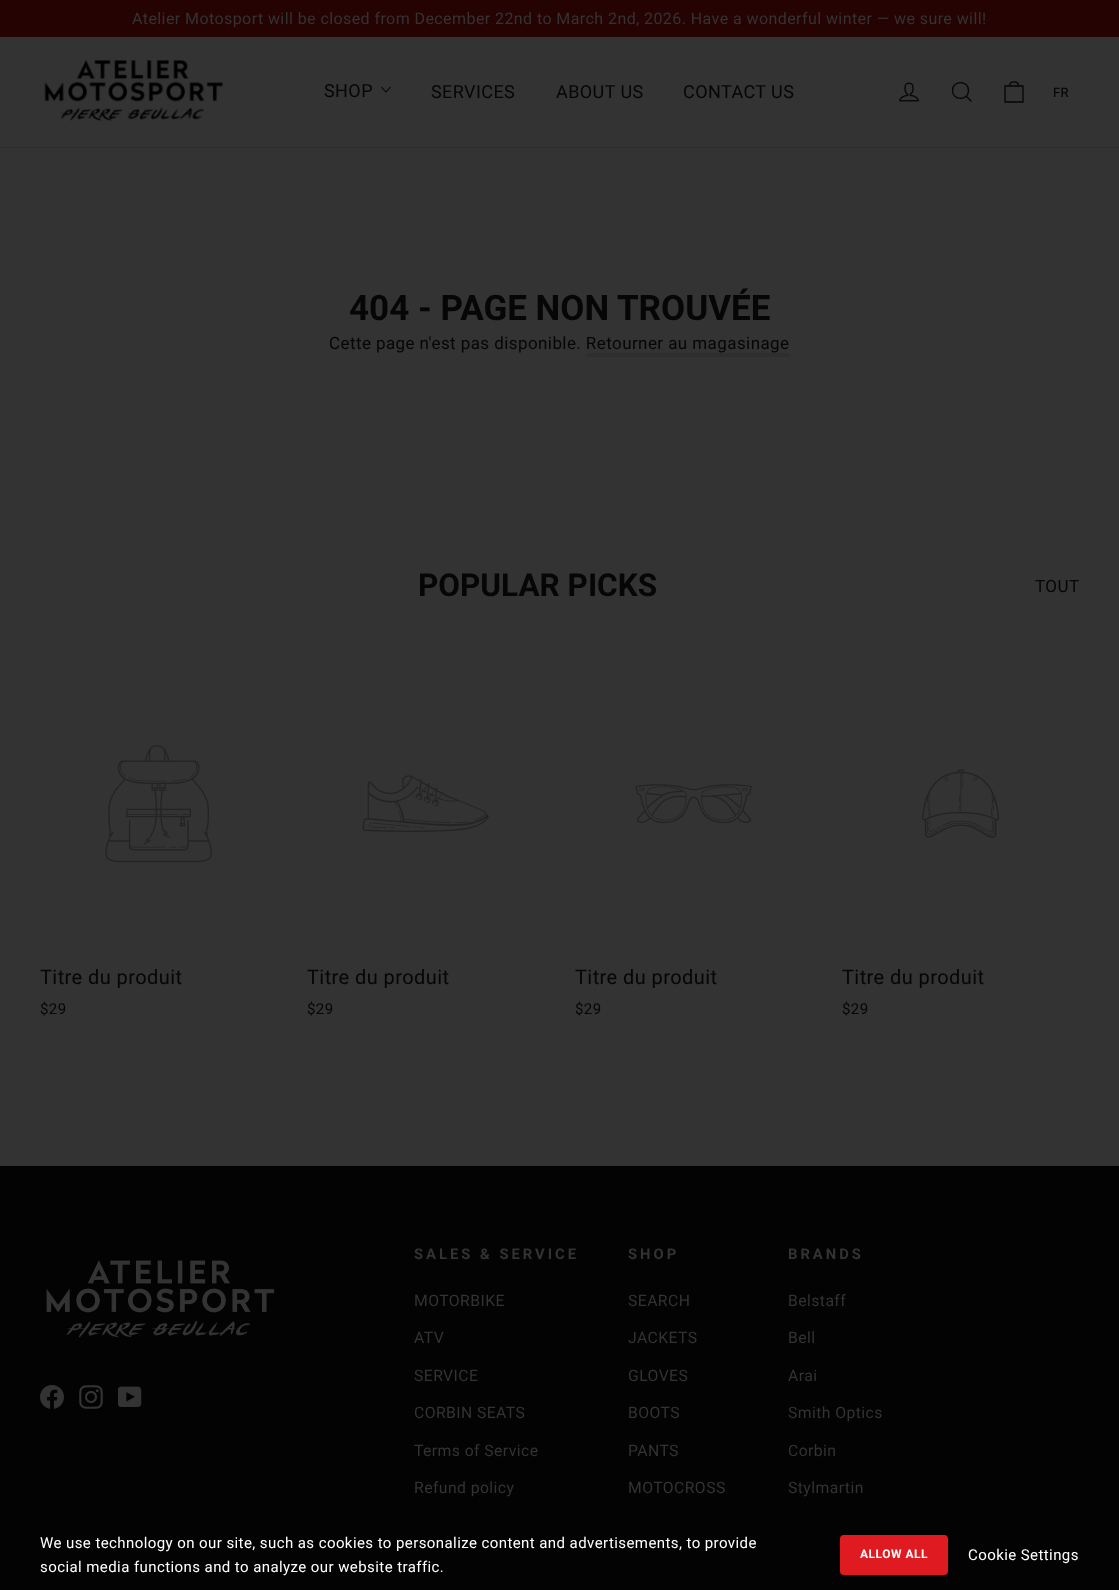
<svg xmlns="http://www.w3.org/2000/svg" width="1119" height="1590">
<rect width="100%" height="100%" fill="#333"/>
<rect width="1119" height="37" fill="#260303"/>
<text x="132" y="24" style="font-family:Roboto;font-size:16px;letter-spacing:0.42px;fill:#333">Atelier Motosport will be closed from December 22nd to March 2nd, 2026. Have a wonderful winter — we sure will!</text>
<rect y="147" width="1119" height="1" fill="#2e2e2d"/>
<image x="44" y="60" width="180" height="62" href="media/1.png"/>
<text x="324" y="97" style="font-family:Roboto;font-size:18px;letter-spacing:0.42px;fill:#060606">SHOP</text>
<path d="M381.5 87l4.5 5l4.5-5" fill="none" stroke="#060606" stroke-width="1.1"/>
<text x="431" y="98" style="font-family:Roboto;font-size:18px;letter-spacing:0.42px;fill:#060606">SERVICES</text>
<text x="556" y="98" style="font-family:Roboto;font-size:18px;letter-spacing:0.42px;fill:#060606">ABOUT US</text>
<text x="683" y="98" style="font-family:Roboto;font-size:18px;letter-spacing:0.42px;fill:#060606">CONTACT US</text>
<image x="899" y="82" width="20" height="20" href="media/2.png"/>
<path d="M968.5 90.5c0 10.5-16 10.5-16 0c0-10.5 16-10.5 16 0zm3 11l-5-5" fill="none" stroke="#060606" stroke-width="1.3"/>
<path d="M1005 86h18v16h-18zm4.5 0c0-5.5 9-5.5 9 0" fill="none" stroke="#060606" stroke-width="1.3"/>
<text x="1053" y="97" style="font-family:Roboto;font-size:13px;letter-spacing:0.42px;fill:#000">FR</text>
<text x="349" y="320" style="font-family:Roboto;font-size:35px;font-weight:bold;fill:#060606">404 - PAGE NON TROUVÉE</text>
<text x="329" y="349" style="font-family:Roboto;font-size:17px;letter-spacing:0.42px;fill:#060606">Cette page n'est pas disponible. Retourner au magasinage</text>
<rect x="586" y="353" width="204" height="4" fill="#2e2e2e"/>
<text x="418" y="596" style="font-family:Roboto;font-size:31.5px;font-weight:bold;fill:#060606">POPULAR PICKS</text>
<text x="1035" y="592" style="font-family:Roboto;font-size:17px;letter-spacing:0.42px;fill:#060606">TOUT</text>
<image x="105" y="745" width="107" height="118" href="media/3.png"/>
<text x="40" y="984" style="font-family:Roboto;font-size:20px;letter-spacing:0.42px;fill:#060606">Titre du produit</text>
<text x="40" y="1014" style="font-family:Roboto;font-size:15px;letter-spacing:0.42px;fill:#060606">$29</text>
<image x="362" y="775" width="127" height="57" href="media/4.png"/>
<text x="307" y="984" style="font-family:Roboto;font-size:20px;letter-spacing:0.42px;fill:#060606">Titre du produit</text>
<text x="307" y="1014" style="font-family:Roboto;font-size:15px;letter-spacing:0.42px;fill:#060606">$29</text>
<image x="635" y="784" width="117" height="40" href="media/5.png"/>
<text x="575" y="984" style="font-family:Roboto;font-size:20px;letter-spacing:0.42px;fill:#060606">Titre du produit</text>
<text x="575" y="1014" style="font-family:Roboto;font-size:15px;letter-spacing:0.42px;fill:#060606">$29</text>
<image x="922" y="769" width="78" height="69" href="media/6.png"/>
<text x="842" y="984" style="font-family:Roboto;font-size:20px;letter-spacing:0.42px;fill:#060606">Titre du produit</text>
<text x="842" y="1014" style="font-family:Roboto;font-size:15px;letter-spacing:0.42px;fill:#060606">$29</text>
<rect y="1166" width="1119" height="424" fill="#030303"/>
<image x="46" y="1260" width="229" height="78" href="media/7.png"/>
<image x="40" y="1385" width="24" height="24" href="media/8.png"/>
<image x="79" y="1385" width="24" height="24" href="media/9.png"/>
<image x="118" y="1386" width="24" height="21" href="media/10.png"/>
<text x="414" y="1259" style="font-family:Roboto;font-size:14.75px;font-weight:bold;letter-spacing:3px;fill:#333">SALES &amp; SERVICE</text>
<text x="414" y="1306" style="font-family:Roboto;font-size:15.75px;letter-spacing:0.42px;fill:#333">MOTORBIKE</text>
<text x="414" y="1343" style="font-family:Roboto;font-size:15.75px;letter-spacing:0.42px;fill:#333">ATV</text>
<text x="414" y="1381" style="font-family:Roboto;font-size:15.75px;letter-spacing:0.42px;fill:#333">SERVICE</text>
<text x="414" y="1418" style="font-family:Roboto;font-size:15.75px;letter-spacing:0.42px;fill:#333">CORBIN SEATS</text>
<text x="414" y="1456" style="font-family:Roboto;font-size:15.75px;letter-spacing:0.42px;fill:#333">Terms of Service</text>
<text x="414" y="1493" style="font-family:Roboto;font-size:15.75px;letter-spacing:0.42px;fill:#333">Refund policy</text>
<text x="628" y="1259" style="font-family:Roboto;font-size:14.75px;font-weight:bold;letter-spacing:3px;fill:#333">SHOP</text>
<text x="628" y="1306" style="font-family:Roboto;font-size:15.75px;letter-spacing:0.42px;fill:#333">SEARCH</text>
<text x="628" y="1343" style="font-family:Roboto;font-size:15.75px;letter-spacing:0.42px;fill:#333">JACKETS</text>
<text x="628" y="1381" style="font-family:Roboto;font-size:15.75px;letter-spacing:0.42px;fill:#333">GLOVES</text>
<text x="628" y="1418" style="font-family:Roboto;font-size:15.75px;letter-spacing:0.42px;fill:#333">BOOTS</text>
<text x="628" y="1456" style="font-family:Roboto;font-size:15.75px;letter-spacing:0.42px;fill:#333">PANTS</text>
<text x="628" y="1493" style="font-family:Roboto;font-size:15.75px;letter-spacing:0.42px;fill:#333">MOTOCROSS</text>
<text x="788" y="1259" style="font-family:Roboto;font-size:14.75px;font-weight:bold;letter-spacing:3px;fill:#333">BRANDS</text>
<text x="788" y="1306" style="font-family:Roboto;font-size:15.75px;letter-spacing:0.42px;fill:#333">Belstaff</text>
<text x="788" y="1343" style="font-family:Roboto;font-size:15.75px;letter-spacing:0.42px;fill:#333">Bell</text>
<text x="788" y="1381" style="font-family:Roboto;font-size:15.75px;letter-spacing:0.42px;fill:#333">Arai</text>
<text x="788" y="1418" style="font-family:Roboto;font-size:15.75px;letter-spacing:0.42px;fill:#333">Smith Optics</text>
<text x="788" y="1456" style="font-family:Roboto;font-size:15.75px;letter-spacing:0.42px;fill:#333">Corbin</text>
<text x="788" y="1493" style="font-family:Roboto;font-size:15.75px;letter-spacing:0.42px;fill:#333">Stylmartin</text>
<text x="40" y="1548" style="font-family:Roboto;font-size:15px;letter-spacing:0.42px;fill:#fff">We use technology on our site, such as cookies to personalize content and advertisements, to provide</text>
<text x="40" y="1572" style="font-family:Roboto;font-size:15px;letter-spacing:0.42px;fill:#fff">social media functions and to analyze our website traffic.</text>
<rect x="840" y="1535" width="108" height="40" rx="4" fill="#df1b21"/>
<text x="860" y="1558" style="font-family:Roboto;font-size:12px;font-weight:bold;letter-spacing:0.5px;fill:#fff">ALLOW ALL</text>
<text x="968" y="1560" style="font-family:Roboto;font-size:15px;letter-spacing:0.42px;fill:#fff">Cookie Settings</text>
</svg>
